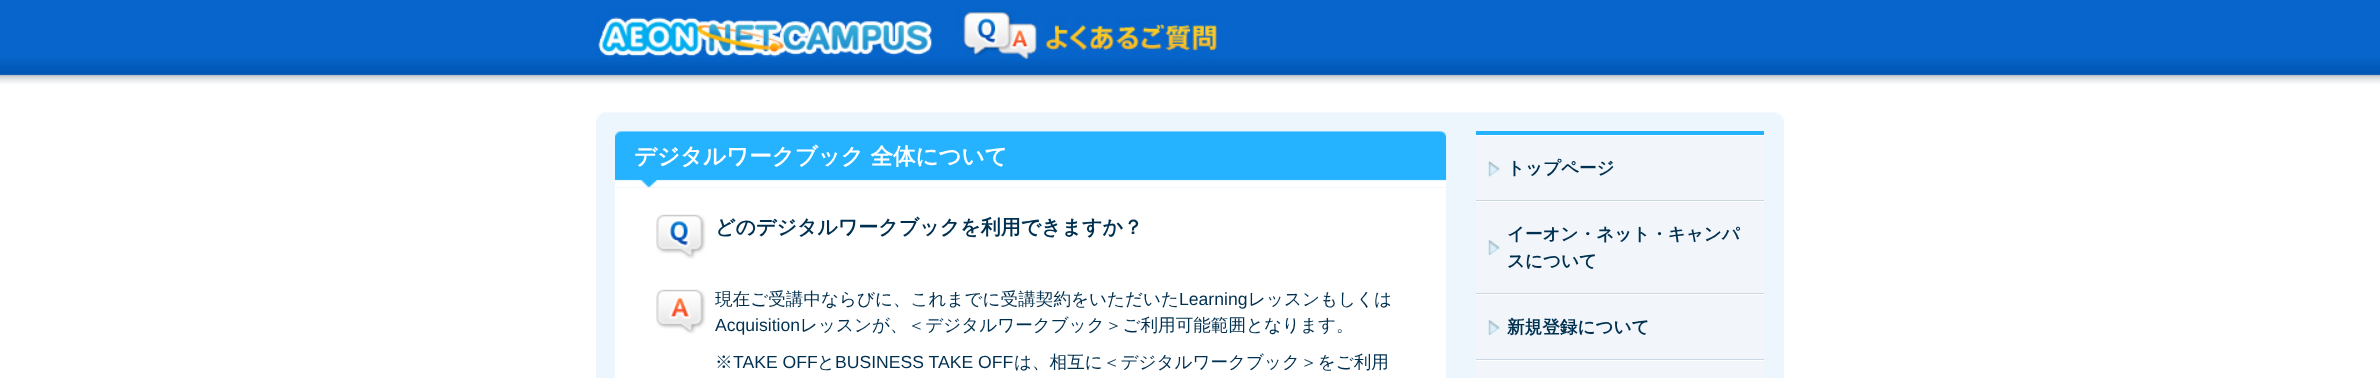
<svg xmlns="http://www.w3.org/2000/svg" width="2380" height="378">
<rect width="100%" height="100%" fill="#fff"/>
<image x="0" y="0" width="2380" height="84" href="media/1.png"/>
<image x="596" y="9" width="621" height="50" href="media/2.png"/>
<rect x="596" y="113" width="1188" height="265" fill="#edf6fd"/>
<image x="596" y="112" width="1188" height="8" href="media/3.png"/>
<image x="615" y="131" width="832" height="57" href="media/4.png"/>
<text x="634" y="164" style="font-family:WenQuanYi Zen Hei;font-size:22.5px;font-weight:bold;fill:#fff">デジタルワークブック 全体について</text>
<rect x="615" y="188" width="831" height="190" fill="#fff"/>
<image x="656" y="214" width="50" height="45" href="media/5.png"/>
<text x="715" y="234" style="font-family:WenQuanYi Zen Hei;font-size:20px;font-weight:bold;fill:#003050">どのデジタルワークブックを利用できますか？</text>
<image x="656" y="289" width="50" height="45" href="media/6.png"/>
<text x="715" y="305" style="font-family:WenQuanYi Zen Hei;font-size:17.6px;font-weight:500;fill:#003050">現在ご受講中ならびに、これまでに受講契約をいただいた</text>
<text x="1179" y="305" style="font-family:Liberation Sans;font-size:17.6px;fill:#003050">Learning</text>
<text x="1248" y="305" style="font-family:WenQuanYi Zen Hei;font-size:17.6px;font-weight:500;fill:#003050">レッスンもしくは</text>
<text x="715" y="331" style="font-family:Liberation Sans;font-size:17.6px;fill:#003050">Acquisition</text>
<text x="800" y="331" style="font-family:WenQuanYi Zen Hei;font-size:17.6px;font-weight:500;fill:#003050">レッスンが、＜デジタルワークブック＞ご利用可能範囲となります。</text>
<text x="715" y="368" style="font-family:WenQuanYi Zen Hei;font-size:17.6px;font-weight:500;fill:#003050">※</text>
<text x="733" y="368" style="font-family:Liberation Sans;font-size:17.6px;fill:#003050">TAKE OFF</text>
<text x="817" y="368" style="font-family:WenQuanYi Zen Hei;font-size:17.6px;font-weight:500;fill:#003050">と</text>
<text x="835" y="368" style="font-family:Liberation Sans;font-size:17.6px;fill:#003050">BUSINESS TAKE OFF</text>
<text x="1014" y="368" style="font-family:WenQuanYi Zen Hei;font-size:17.6px;font-weight:500;fill:#003050">は、相互に＜デジタルワークブック＞をご利用</text>
<rect x="1476" y="136" width="288" height="242" fill="#f2f6fa"/>
<rect x="1476" y="131" width="288" height="4" fill="#25b3ff"/>
<image x="1488" y="161" width="12" height="16" href="media/7.png"/>
<rect x="1476" y="135" width="288" height="1" fill="#fff"/>
<rect x="1476" y="200" width="288" height="1" fill="#cad7e3"/>
<text x="1507" y="174" style="font-family:WenQuanYi Zen Hei;font-size:17.6px;font-weight:bold;fill:#003050">トップページ</text>
<image x="1488" y="240" width="12" height="15" href="media/8.png"/>
<rect x="1476" y="201" width="288" height="1" fill="#fff"/>
<rect x="1476" y="293" width="288" height="1" fill="#cad7e3"/>
<text x="1507" y="240" style="font-family:WenQuanYi Zen Hei;font-size:17.6px;font-weight:bold;fill:#003050">イーオン・ネット・キャンパ</text>
<text x="1507" y="267" style="font-family:WenQuanYi Zen Hei;font-size:17.6px;font-weight:bold;fill:#003050">スについて</text>
<image x="1488" y="320" width="12" height="15" href="media/8.png"/>
<rect x="1476" y="294" width="288" height="1" fill="#fff"/>
<rect x="1476" y="359" width="288" height="1" fill="#cad7e3"/>
<text x="1507" y="333" style="font-family:WenQuanYi Zen Hei;font-size:17.6px;font-weight:bold;fill:#003050">新規登録について</text>
<rect x="1476" y="360" width="288" height="1" fill="#fff"/>
</svg>
